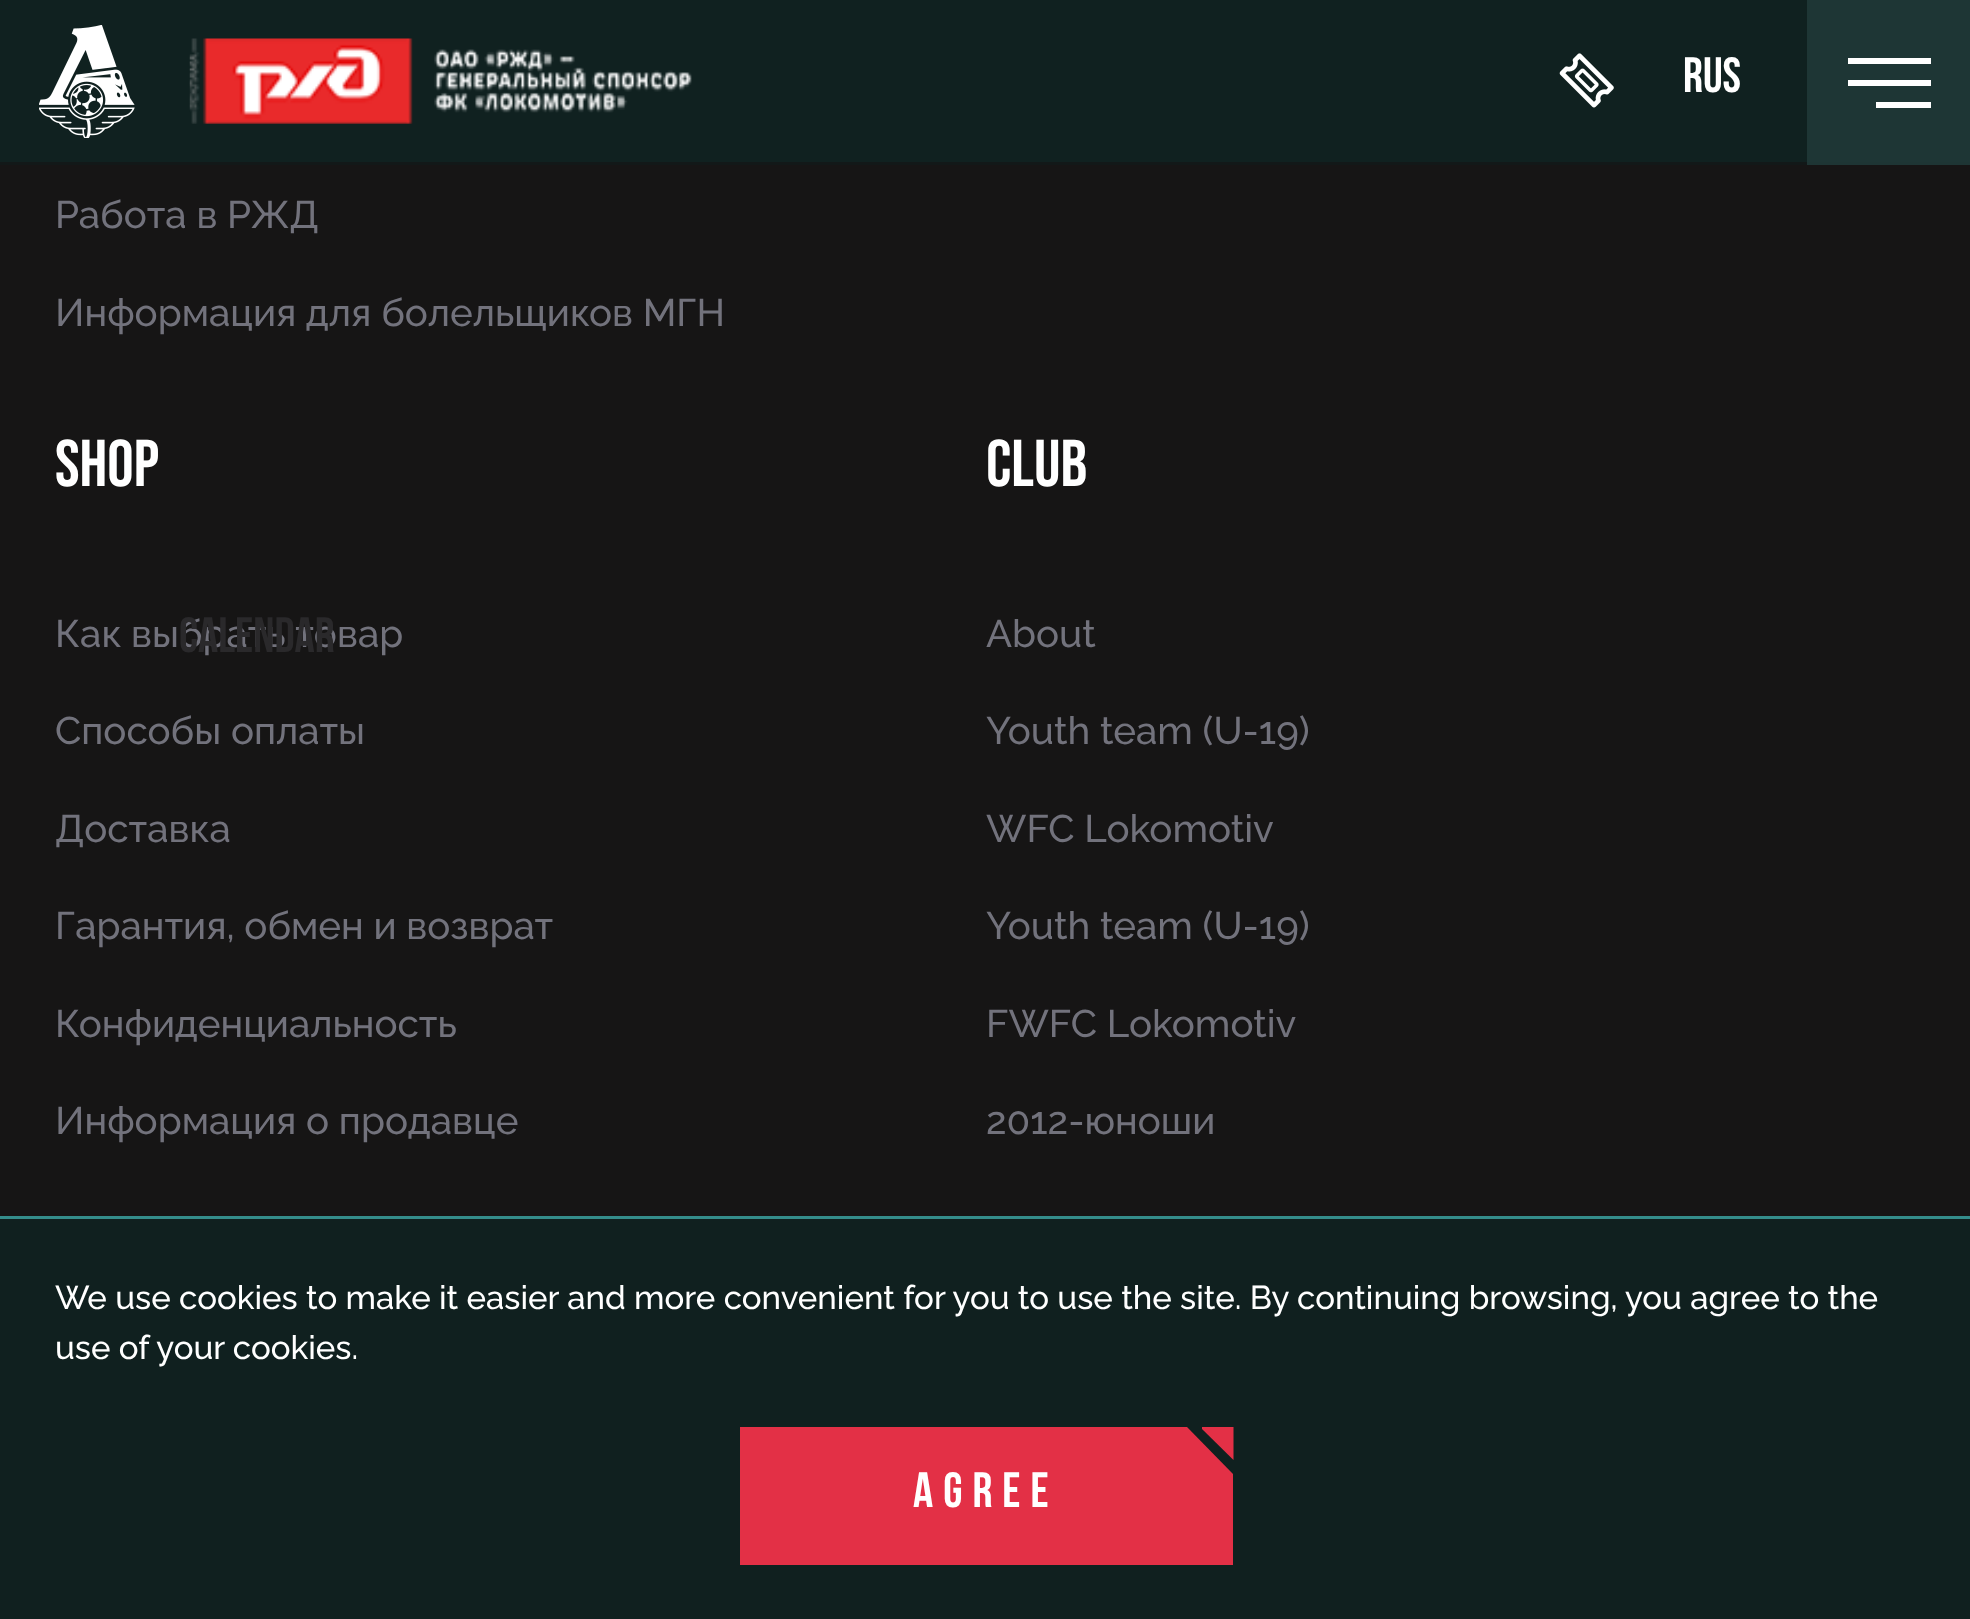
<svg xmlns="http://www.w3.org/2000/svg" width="1970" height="1619">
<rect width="100%" height="100%" fill="#161515"/>
<rect width="1970" height="162" fill="#102120"/>
<rect y="162" width="1970" height="3" fill="#121818"/>
<image x="39" y="25" width="96" height="113" href="media/1.png"/>
<image x="189" y="38" width="503" height="86" href="media/2.png"/>
<image x="1559" y="53" width="55" height="55" href="media/3.png"/>
<text x="1683" y="92" style="font-family:Bebas Neue;font-size:49.5px;font-weight:bold;fill:#fff">RUS</text>
<rect x="1807" width="163" height="165" fill="#203837e6"/>
<rect x="1848" y="58" width="83" height="6" fill="#fff"/>
<rect x="1848" y="80" width="83" height="6" fill="#fff"/>
<rect x="1876" y="102" width="55" height="6" fill="#fff"/>
<text x="55" y="647" style="font-family:Raleway;font-size:38.5px;font-weight:500;fill:#72727c">Как выбрать товар</text>
<text x="179" y="652" style="font-family:Bebas Neue;font-size:49.5px;font-weight:bold;fill:#2a292b">Calendar</text>
<text x="55" y="228" style="font-family:Raleway;font-size:38.5px;font-weight:500;fill:#72727c">Работа в РЖД</text>
<text x="55" y="326" style="font-family:Raleway;font-size:38.5px;font-weight:500;fill:#72727c">Информация для болельщиков МГН</text>
<text x="55" y="486" style="font-family:Bebas Neue;font-size:66px;fill:#fff">SHOP</text>
<text x="55" y="744" style="font-family:Raleway;font-size:38.5px;font-weight:500;fill:#72727c">Способы оплаты</text>
<text x="55" y="842" style="font-family:Raleway;font-size:38.5px;font-weight:500;fill:#72727c">Доставка</text>
<text x="55" y="939" style="font-family:Raleway;font-size:38.5px;font-weight:500;fill:#72727c">Гарантия, обмен и возврат</text>
<text x="55" y="1037" style="font-family:Raleway;font-size:38.5px;font-weight:500;fill:#72727c">Конфиденциальность</text>
<text x="55" y="1134" style="font-family:Raleway;font-size:38.5px;font-weight:500;fill:#72727c">Информация о продавце</text>
<text x="986" y="486" style="font-family:Bebas Neue;font-size:66px;fill:#fff">CLUB</text>
<text x="986" y="647" style="font-family:Raleway;font-size:38.5px;font-weight:500;fill:#72727c">About</text>
<text x="986" y="744" style="font-family:Raleway;font-size:38.5px;font-weight:500;fill:#72727c">Youth team (U-19)</text>
<text x="986" y="842" style="font-family:Raleway;font-size:38.5px;font-weight:500;fill:#72727c">WFC Lokomotiv</text>
<text x="986" y="939" style="font-family:Raleway;font-size:38.5px;font-weight:500;fill:#72727c">Youth team (U-19)</text>
<text x="986" y="1037" style="font-family:Raleway;font-size:38.5px;font-weight:500;fill:#72727c">FWFC Lokomotiv</text>
<text x="986" y="1134" style="font-family:Raleway;font-size:38.5px;font-weight:500;fill:#72727c">2012-юноши</text>
<rect y="1219" width="1970" height="400" fill="#102120f2"/>
<rect y="1216" width="1970" height="3" fill="#348d8b"/>
<text x="55" y="1309" style="font-family:Raleway;font-size:33px;font-weight:500;fill:#fff">We use cookies to make it easier and more convenient for you to use the site. By continuing browsing, you agree to the</text>
<text x="55" y="1359" style="font-family:Raleway;font-size:33px;font-weight:500;fill:#fff">use of your cookies.</text>
<path d="M1187 1427l46 47v91h-493v-138z" fill="#e33046"/>
<path d="M1233.5 1427v33l-31.5-31v-2z" fill="#e33046"/>
<text x="913" y="1507" style="font-family:Bebas Neue;font-size:49.5px;font-weight:bold;letter-spacing:10px;fill:#fff">AGREE</text>
</svg>
